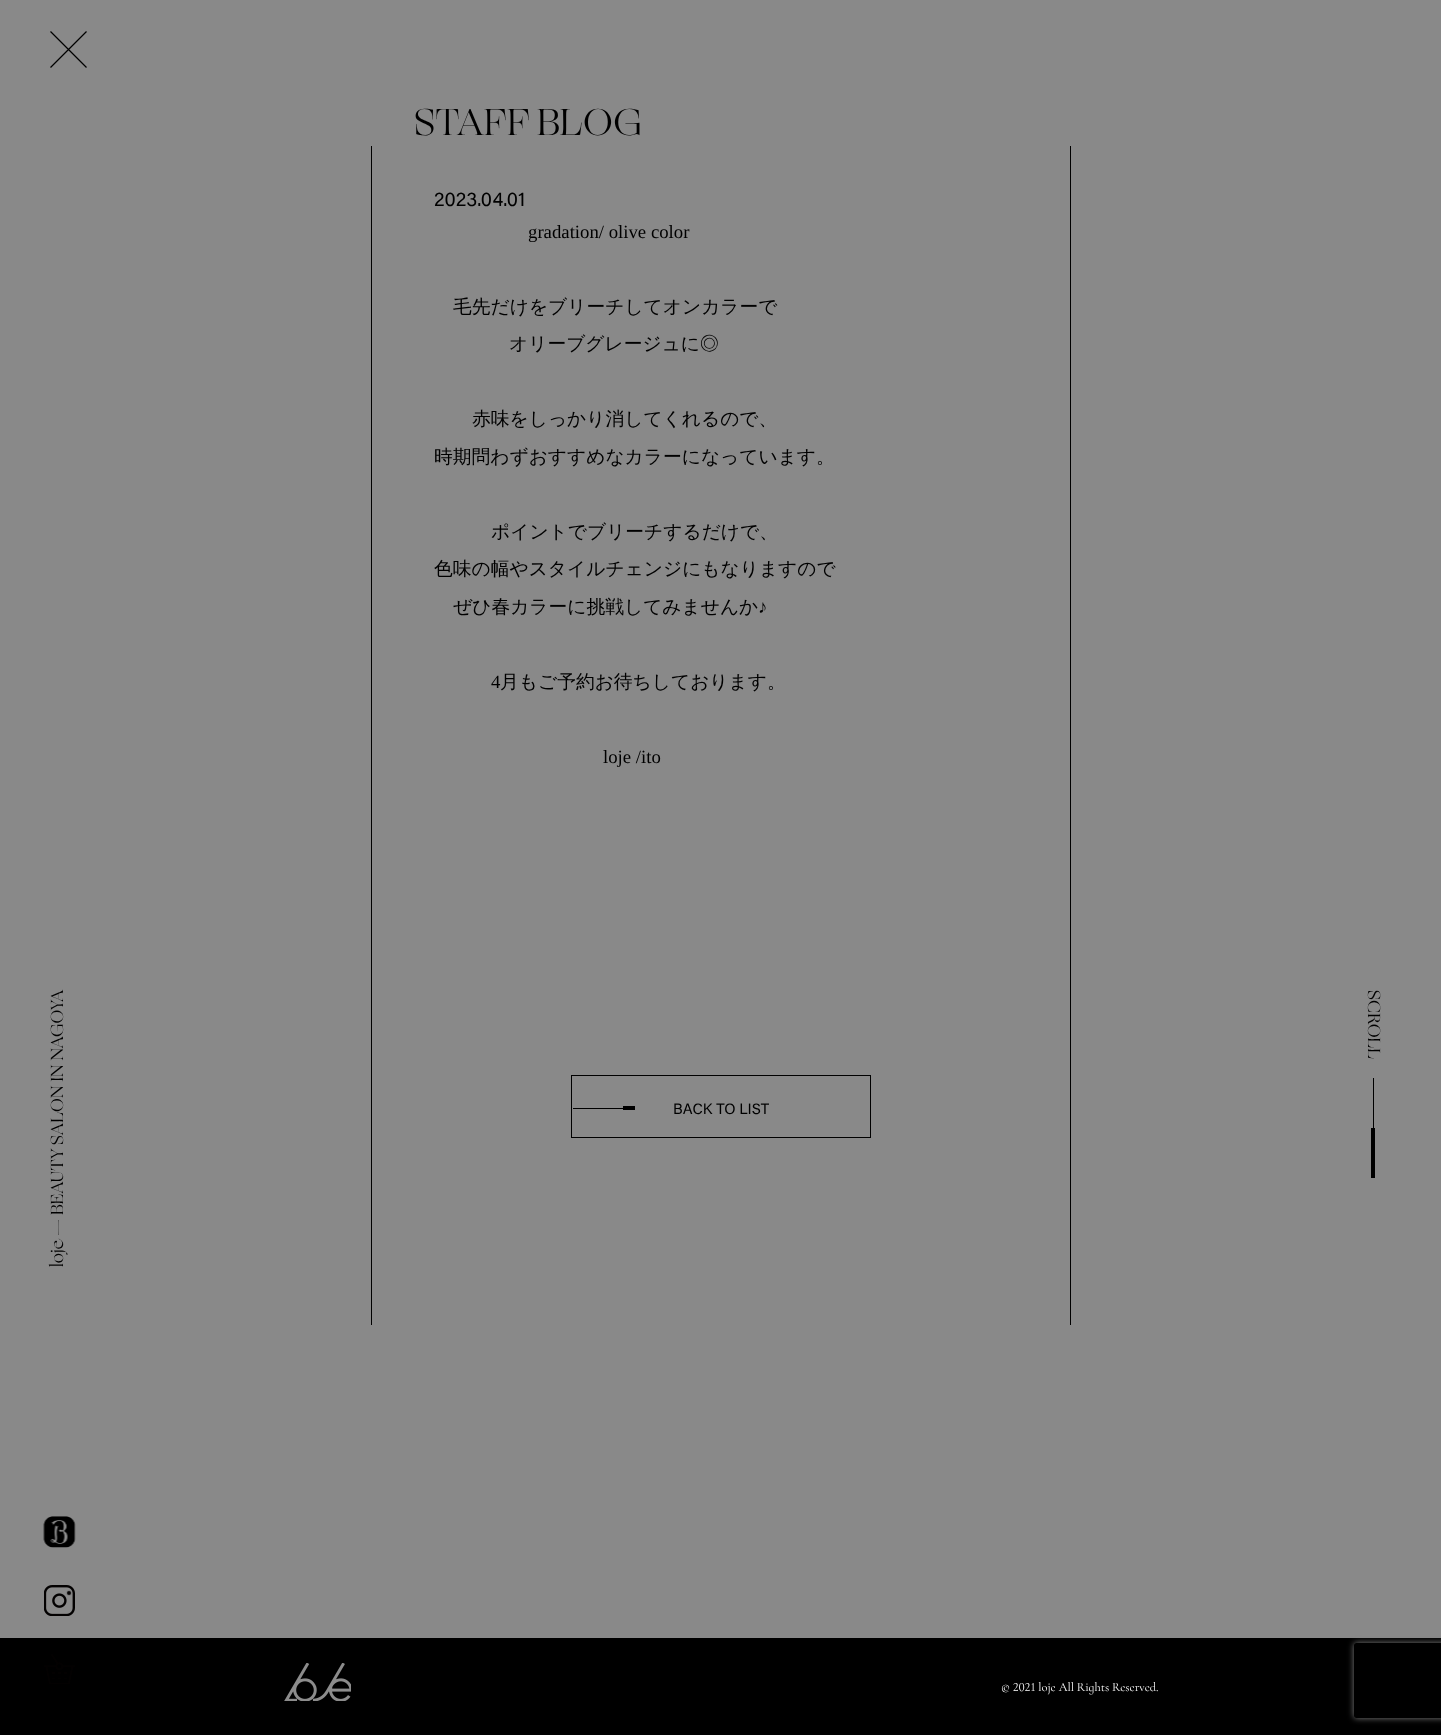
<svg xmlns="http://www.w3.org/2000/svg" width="1441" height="1735">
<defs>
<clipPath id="clip1"><path d="M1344 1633h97v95h-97zm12.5 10h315c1.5 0 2.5 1 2.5 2.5v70c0 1.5-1 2.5-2.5 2.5h-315c-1.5 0-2.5-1-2.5-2.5v-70c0-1.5 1-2.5 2.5-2.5z" clip-rule="evenodd"/></clipPath>
</defs>
<rect width="100%" height="100%" fill="#fafafa"/>
<path d="M50.5 67.5l36-36m0 36l-36-36" fill="none" stroke="#000" stroke-width="1.2"/>
<image x="43" y="1516" width="33" height="32" href="media/1.png"/>
<image x="44" y="1585" width="31" height="31" href="media/2.png"/>
<rect y="1638" width="1441" height="97" fill="#000"/>
<image x="44" y="1654" width="31" height="30" href="media/3.png"/>
<rect x="571.5" y="1075.5" width="299" height="62" fill="none" stroke="#000"/>
<image x="284" y="1663" width="67" height="38" href="media/4.png"/>
<rect width="1441" height="1735" fill="#00000073" filter="blur(0.5px)"/>
<text x="414" y="135" style="font-family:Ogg;font-size:37.5px;fill:#000">STAFF BLOG</text>
<text x="63" y="1267" transform="rotate(-90 63 1267)" style="font-family:Ogg;font-size:17.5px;fill:#000">loje — BEAUTY SALON IN NAGOYA</text>
<rect x="1070" y="146" width="1" height="1179" fill="#000" filter="blur(0.5px)"/>
<rect x="371" y="146" width="1" height="1179" fill="#000" filter="blur(0.5px)"/>
<text x="434" y="206" style="font-family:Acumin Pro;font-size:20px;fill:#000">2023.04.01</text>
<text x="528" y="238" style="font-family:Liberation Serif;font-size:18.75px;fill:#000">gradation/ olive color</text>
<text x="453" y="313" style="font-family:WenQuanYi Zen Hei;font-size:18.75px;font-weight:500;fill:#000">毛先だけをブリーチしてオンカラーで</text>
<text x="509" y="350" style="font-family:WenQuanYi Zen Hei;font-size:18.75px;font-weight:500;fill:#000">オリーブグレージュに◎</text>
<text x="472" y="425" style="font-family:WenQuanYi Zen Hei;font-size:18.75px;font-weight:500;fill:#000">赤味をしっかり消してくれるので、</text>
<text x="434" y="463" style="font-family:WenQuanYi Zen Hei;font-size:18.75px;font-weight:500;fill:#000">時期問わずおすすめなカラーになっています。</text>
<text x="491" y="538" style="font-family:WenQuanYi Zen Hei;font-size:18.75px;font-weight:500;fill:#000">ポイントでブリーチするだけで、</text>
<text x="434" y="575" style="font-family:WenQuanYi Zen Hei;font-size:18.75px;font-weight:500;fill:#000">色味の幅やスタイルチェンジにもなりますので</text>
<text x="453" y="613" style="font-family:WenQuanYi Zen Hei;font-size:18.75px;font-weight:500;fill:#000">ぜひ春カラーに挑戦してみませんか</text>
<text x="758" y="613" style="font-family:Liberation Serif;font-size:18.75px;fill:#000">♪</text>
<text x="491" y="688" style="font-family:Liberation Serif;font-size:18.75px;fill:#000">4</text>
<text x="500" y="688" style="font-family:WenQuanYi Zen Hei;font-size:18.75px;font-weight:500;fill:#000">月もご予約お待ちしております。</text>
<text x="603" y="763" style="font-family:Liberation Serif;font-size:18.75px;fill:#000">loje /ito</text>
<rect x="623" y="1106" width="12" height="4" fill="#000" filter="blur(0.5px)"/>
<text x="673" y="1114" style="font-family:Acumin Pro;font-size:15px;fill:#000">BACK TO LIST</text>
<rect x="573" y="1108" width="62" height="1" fill="#000" filter="blur(0.5px)"/>
<text x="1368" y="990" transform="rotate(90 1368 990)" style="font-family:Ogg;font-size:17.5px;fill:#000">SCROLL</text>
<rect x="1373" y="1078" width="1" height="100" fill="#000" filter="blur(0.5px)"/>
<rect x="1371" y="1128" width="4" height="50" fill="#000" filter="blur(0.5px)"/>
<text x="1001" y="1691" style="font-family:Cormorant Infant;font-size:12.5px;font-weight:300;fill:#fff">© 2021 loje All Rights Reserved.</text>
<g clip-path="url(#clip1)">
<rect x="1354" y="1643" width="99" height="75" rx="2.5" fill="#808080" filter="blur(3px)"/>
</g>
</svg>
